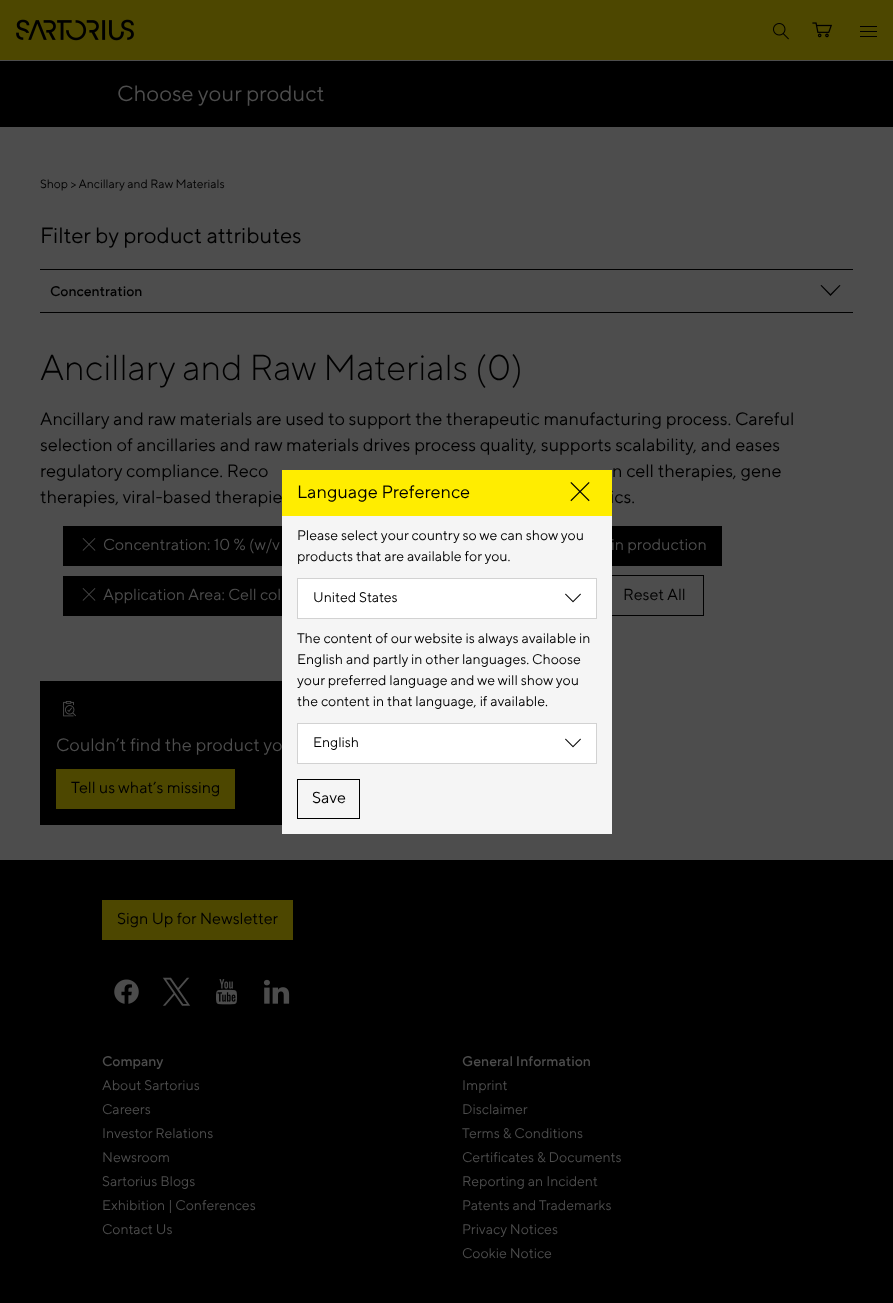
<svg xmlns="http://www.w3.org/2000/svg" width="893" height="1303">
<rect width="100%" height="100%" fill="#000"/>
<rect width="893" height="60" fill="#4d4700"/>
<image x="16" y="19" width="118" height="22" href="media/1.png"/>
<image x="773" y="23" width="16" height="17" href="media/2.png"/>
<image x="812" y="22" width="20" height="16" href="media/3.png"/>
<rect x="860" y="26" width="17" height="1" fill="#000"/>
<rect x="860" y="31" width="17" height="1" fill="#000"/>
<rect x="860" y="36" width="17" height="1" fill="#000"/>
<rect y="60" width="893" height="800" fill="#4d4d4d"/>
<rect y="61" width="893" height="66" fill="#000"/>
<text x="117" y="101" style="font-family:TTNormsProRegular;font-size:22px;fill:#4d4d4d">Choose your product</text>
<text x="40" y="188" style="font-family:TTNormsProRegular;font-size:12px;fill:#000">Shop &gt; Ancillary and Raw Materials</text>
<text x="40" y="243" style="font-family:TTNormsProRegular;font-size:22px;fill:#000">Filter by product attributes</text>
<rect x="40" y="312" width="813" height="1" fill="#000"/>
<rect x="40" y="269" width="813" height="1" fill="#000"/>
<text x="50" y="296" style="font-family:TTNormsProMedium;font-size:14px;fill:#000">Concentration</text>
<path d="M830.5 296l-10-10.5l1-.5l9 9l9-9l1 .5z" fill="#000"/>
<text x="40" y="380" style="font-family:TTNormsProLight;font-size:36px;fill:#000">Ancillary and Raw Materials (0)</text>
<text x="40" y="425" style="font-family:TTNormsProRegular;font-size:18px;fill:#000">Ancillary and raw materials are used to support the therapeutic manufacturing process. Careful</text>
<text x="40" y="451" style="font-family:TTNormsProRegular;font-size:18px;fill:#000">selection of ancillaries and raw materials drives process quality, supports scalability, and eases</text>
<text x="40" y="477" style="font-family:TTNormsProRegular;font-size:18px;fill:#000">regulatory compliance. Reco</text>
<text x="612" y="477" style="font-family:TTNormsProRegular;font-size:18px;fill:#000">n cell therapies, gene</text>
<text x="40" y="503" style="font-family:TTNormsProRegular;font-size:18px;fill:#000">therapies, viral-based therapie</text>
<text x="610" y="503" style="font-family:TTNormsProRegular;font-size:18px;fill:#000">ics.</text>
<rect x="63" y="526" width="219" height="40" fill="#000"/>
<image x="82" y="538" width="14" height="13" href="media/4.png"/>
<text x="103" y="550" style="font-family:TTNormsProRegular;font-size:16px;fill:#4d4d4d">Concentration: 10 % (w/v</text>
<rect x="612" y="526" width="110" height="40" fill="#000"/>
<text x="611" y="550" style="font-family:TTNormsProRegular;font-size:16px;fill:#4d4d4d">in production</text>
<rect x="63" y="576" width="219" height="40" fill="#000"/>
<image x="82" y="588" width="14" height="13" href="media/4.png"/>
<text x="103" y="600" style="font-family:TTNormsProRegular;font-size:16px;fill:#4d4d4d">Application Area: Cell col</text>
<rect x="607.5" y="575.5" width="96" height="40" fill="none" stroke="#000"/>
<text x="623" y="600" style="font-family:TTNormsProRegular;font-size:16px;fill:#000">Reset All</text>
<rect x="40" y="681" width="242" height="144" fill="#000"/>
<image x="63" y="701" width="13" height="16" href="media/5.png"/>
<text x="56" y="751" style="font-family:TTNormsProRegular;font-size:18px;fill:#4d4d4d">Couldn’t find the product yo</text>
<rect x="56" y="769" width="179" height="40" fill="#4d4700"/>
<text x="71" y="793" style="font-family:TTNormsProRegular;font-size:16px;fill:#000">Tell us what’s missing</text>
<rect x="282" y="516" width="330" height="318" fill="#f5f5f5"/>
<rect x="282" y="470" width="330" height="46" fill="#ffed00"/>
<text x="297" y="498" style="font-family:TTNormsProRegular;font-size:18px;fill:#000">Language Preference</text>
<image x="570" y="482" width="20" height="20" href="media/6.png"/>
<text x="297" y="540" style="font-family:TTNormsProRegular;font-size:14px;fill:#000">Please select your country so we can show you</text>
<text x="297" y="561" style="font-family:TTNormsProRegular;font-size:14px;fill:#000">products that are available for you.</text>
<rect x="297.5" y="578.5" width="299" height="40" fill="#fff" stroke="#d2d2d2"/>
<text x="313" y="602" style="font-family:TTNormsProRegular;font-size:14px;fill:#000">United States</text>
<image x="565" y="593" width="16" height="10" href="media/7.png"/>
<text x="297" y="643" style="font-family:TTNormsProRegular;font-size:14px;fill:#000">The content of our website is always available in</text>
<text x="297" y="664" style="font-family:TTNormsProRegular;font-size:14px;fill:#000">English and partly in other languages. Choose</text>
<text x="297" y="685" style="font-family:TTNormsProRegular;font-size:14px;fill:#000">your preferred language and we will show you</text>
<text x="297" y="706" style="font-family:TTNormsProRegular;font-size:14px;fill:#000">the content in that language, if available.</text>
<rect x="297.5" y="723.5" width="299" height="40" fill="#fff" stroke="#d2d2d2"/>
<text x="313" y="747" style="font-family:TTNormsProRegular;font-size:14px;fill:#000">English</text>
<image x="565" y="738" width="16" height="10" href="media/7.png"/>
<rect x="297.5" y="779.5" width="62" height="39" fill="none" stroke="#000"/>
<text x="312" y="803" style="font-family:TTNormsProRegular;font-size:16px;fill:#000">Save</text>
<rect x="102" y="900" width="191" height="40" fill="#4d4700"/>
<text x="117" y="924" style="font-family:TTNormsProRegular;font-size:16px;fill:#000">Sign Up for Newsletter</text>
<image x="114" y="979" width="25" height="25" href="media/8.png"/>
<image x="162" y="977" width="29" height="29" href="media/9.png"/>
<image x="216" y="979" width="21" height="26" href="media/10.png"/>
<image x="263" y="979" width="27" height="25" href="media/11.png"/>
<text x="102" y="1066" style="font-family:TTNormsProMedium;font-size:14px;fill:#4d4d4d">Company</text>
<text x="102" y="1090" style="font-family:TTNormsProRegular;font-size:14px;fill:#4d4d4d">About Sartorius</text>
<text x="102" y="1114" style="font-family:TTNormsProRegular;font-size:14px;fill:#4d4d4d">Careers</text>
<text x="102" y="1138" style="font-family:TTNormsProRegular;font-size:14px;fill:#4d4d4d">Investor Relations</text>
<text x="102" y="1162" style="font-family:TTNormsProRegular;font-size:14px;fill:#4d4d4d">Newsroom</text>
<text x="102" y="1186" style="font-family:TTNormsProRegular;font-size:14px;fill:#4d4d4d">Sartorius Blogs</text>
<text x="102" y="1210" style="font-family:TTNormsProRegular;font-size:14px;fill:#4d4d4d">Exhibition | Conferences</text>
<text x="102" y="1234" style="font-family:TTNormsProRegular;font-size:14px;fill:#4d4d4d">Contact Us</text>
<text x="462" y="1066" style="font-family:TTNormsProMedium;font-size:14px;fill:#4d4d4d">General Information</text>
<text x="462" y="1090" style="font-family:TTNormsProRegular;font-size:14px;fill:#4d4d4d">Imprint</text>
<text x="462" y="1114" style="font-family:TTNormsProRegular;font-size:14px;fill:#4d4d4d">Disclaimer</text>
<text x="462" y="1138" style="font-family:TTNormsProRegular;font-size:14px;fill:#4d4d4d">Terms &amp; Conditions</text>
<text x="462" y="1162" style="font-family:TTNormsProRegular;font-size:14px;fill:#4d4d4d">Certificates &amp; Documents</text>
<text x="462" y="1186" style="font-family:TTNormsProRegular;font-size:14px;fill:#4d4d4d">Reporting an Incident</text>
<text x="462" y="1210" style="font-family:TTNormsProRegular;font-size:14px;fill:#4d4d4d">Patents and Trademarks</text>
<text x="462" y="1234" style="font-family:TTNormsProRegular;font-size:14px;fill:#4d4d4d">Privacy Notices</text>
<text x="462" y="1258" style="font-family:TTNormsProRegular;font-size:14px;fill:#4d4d4d">Cookie Notice</text>
</svg>
